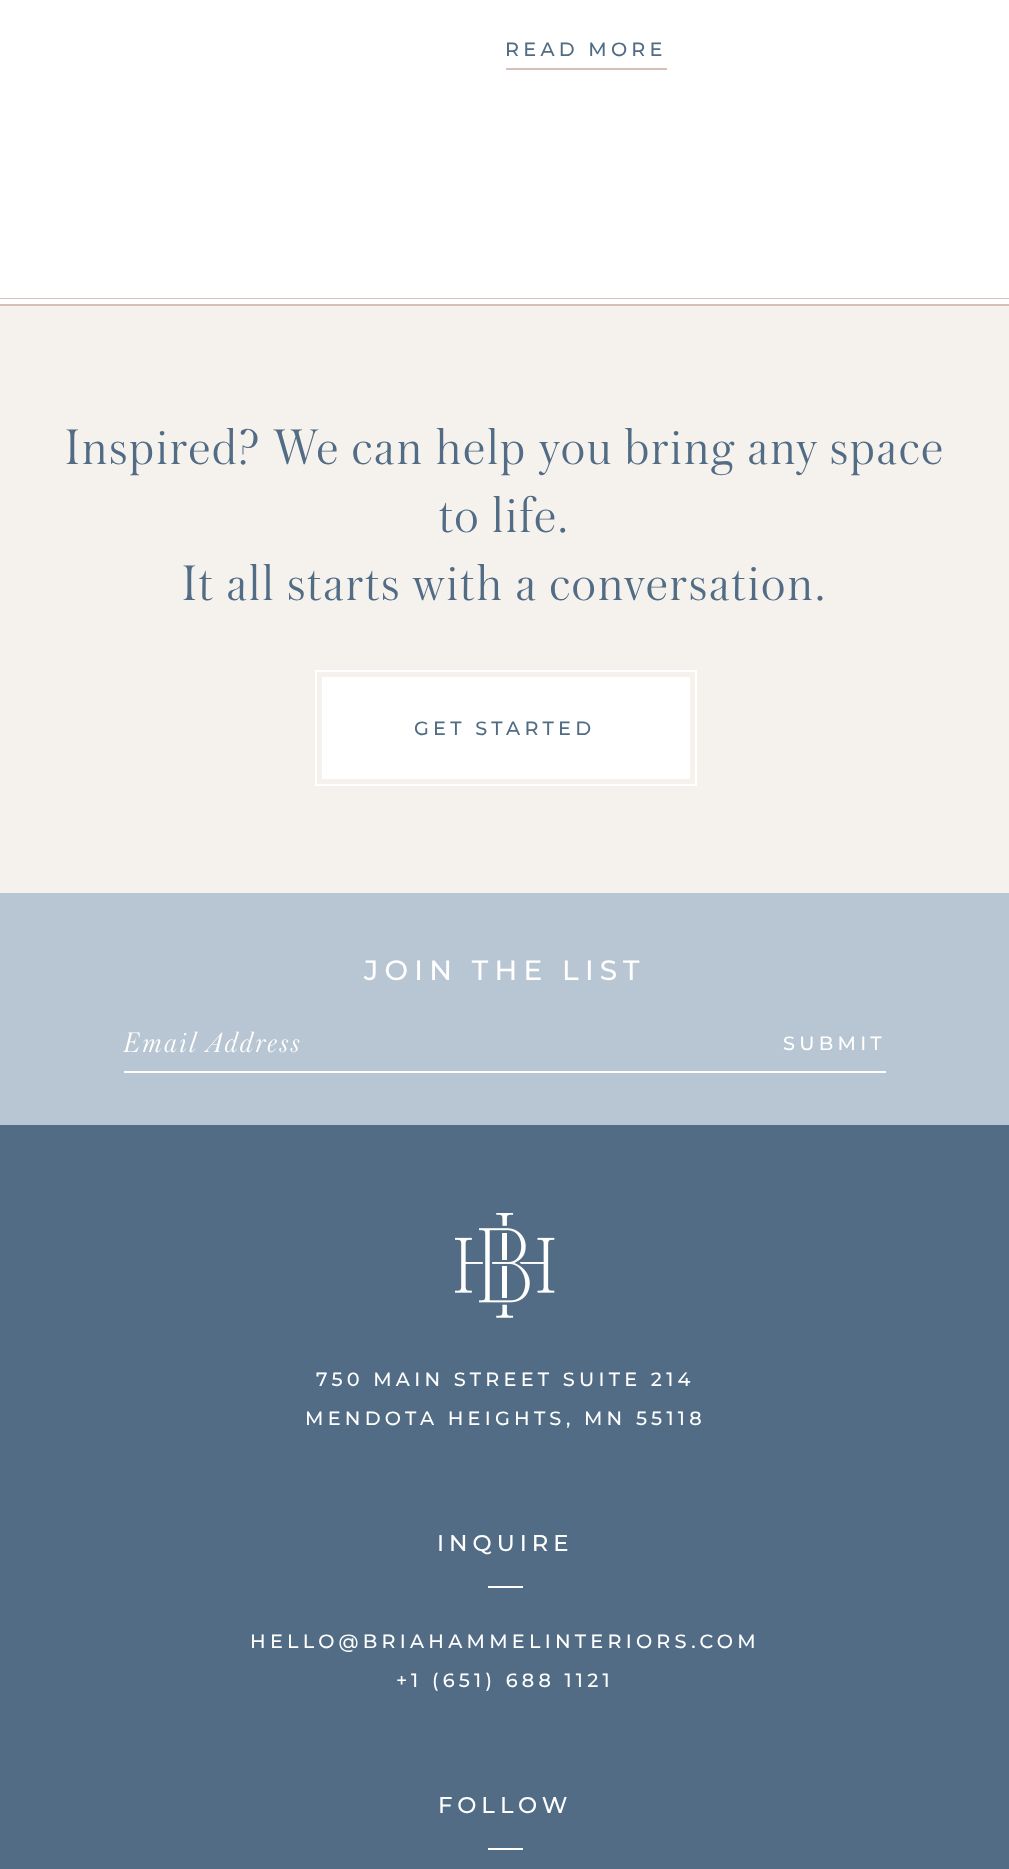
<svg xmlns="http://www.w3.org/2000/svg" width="1009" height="1869">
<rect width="100%" height="100%" fill="#fff"/>
<rect x="506" y="68" width="161" height="2" fill="#d5c1b7"/>
<text x="505" y="56" style="font-family:Montserrat;font-size:19.25px;font-weight:500;letter-spacing:4.25px;fill:#516c84">READ MORE</text>
<rect y="306" width="1009" height="587" fill="#f5f2ee"/>
<rect y="298" width="1009" height="1" fill="#d5c1b7"/>
<rect y="304" width="1009" height="2" fill="#d5c1b7"/>
<text x="65" y="464" style="font-family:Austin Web;font-size:52.5px;font-weight:200;letter-spacing:2.1px;fill:#516c84">Inspired? We can help you bring any space</text>
<text x="439" y="532" style="font-family:Austin Web;font-size:52.5px;font-weight:200;letter-spacing:2.1px;fill:#516c84">to life.</text>
<text x="182" y="600" style="font-family:Austin Web;font-size:52.5px;font-weight:200;letter-spacing:2.1px;fill:#516c84">It all starts with a conversation.</text>
<rect x="322" y="677" width="368" height="102" fill="#fff"/>
<rect x="316" y="671" width="380" height="114" fill="none" stroke="#fff" stroke-width="2"/>
<text x="414" y="735" style="font-family:Montserrat;font-size:19.25px;font-weight:500;letter-spacing:4.25px;fill:#516c84">GET STARTED</text>
<rect y="893" width="1009" height="232" fill="#b8c5d2"/>
<text x="364" y="980" style="font-family:Montserrat;font-size:28px;font-weight:500;letter-spacing:6.2px;fill:#fff">JOIN THE LIST</text>
<rect x="124" y="1071" width="762" height="2" fill="#fff"/>
<text x="124" y="1052" style="font-family:Austin Web;font-size:29.75px;font-weight:200;font-style:italic;letter-spacing:2.4px;fill:#fff">Email Address</text>
<text x="783" y="1050" style="font-family:Montserrat;font-size:19.25px;font-weight:500;letter-spacing:4.25px;fill:#fff">SUBMIT</text>
<rect y="1125" width="1009" height="744" fill="#516c84"/>
<image x="455" y="1213" width="100" height="105" href="media/1.png"/>
<text x="316" y="1386" style="font-family:Montserrat;font-size:19.25px;font-weight:500;letter-spacing:4.25px;fill:#fff">750 MAIN STREET SUITE 214</text>
<text x="305" y="1425" style="font-family:Montserrat;font-size:19.25px;font-weight:500;letter-spacing:4.25px;fill:#fff">MENDOTA HEIGHTS, MN 55118</text>
<text x="437" y="1551" style="font-family:Montserrat;font-size:22.75px;font-weight:500;letter-spacing:5px;fill:#fff">INQUIRE</text>
<rect x="488" y="1586" width="35" height="2" fill="#fff"/>
<text x="250" y="1648" style="font-family:Montserrat;font-size:19.25px;font-weight:500;letter-spacing:4.25px;fill:#fff">HELLO@BRIAHAMMELINTERIORS.COM</text>
<text x="396" y="1687" style="font-family:Montserrat;font-size:19.25px;font-weight:500;letter-spacing:4.25px;fill:#fff">+1 (651) 688 1121</text>
<text x="438" y="1813" style="font-family:Montserrat;font-size:22.75px;font-weight:500;letter-spacing:5px;fill:#fff">FOLLOW</text>
<rect x="488" y="1848" width="35" height="2" fill="#fff"/>
</svg>
